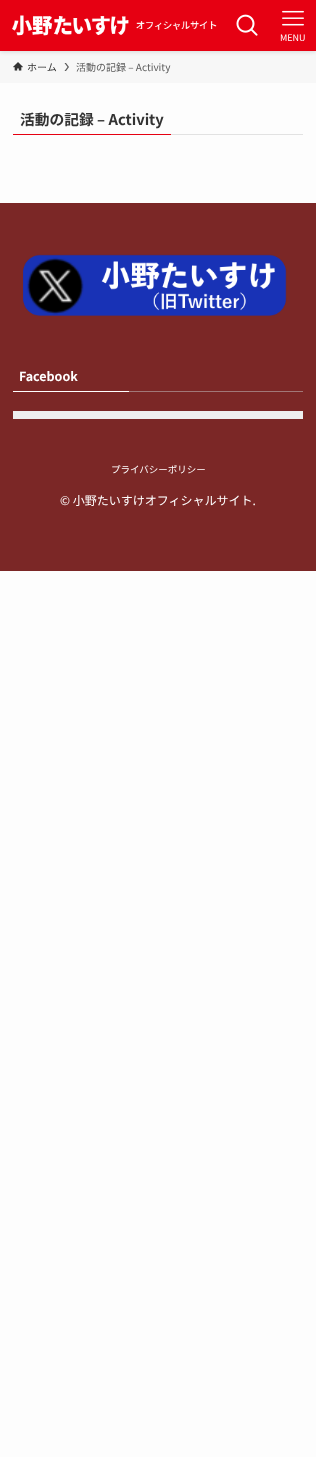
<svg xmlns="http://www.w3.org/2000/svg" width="316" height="1457">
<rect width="100%" height="100%" fill="#fdfdfd"/>
<rect y="51" width="316" height="32" fill="#f7f7f7"/>
<rect y="1" width="316" height="51" fill="#0000001f" filter="blur(2px)"/>
<rect width="316" height="51" fill="#e60012"/>
<image x="12" y="15" width="205" height="21" href="media/1.png"/>
<image x="236" y="14" width="22" height="22" href="media/2.png"/>
<image x="282" y="10" width="22" height="16" href="media/3.png"/>
<text x="280" y="41" style="font-family:Noto Sans JP;font-size:9px;fill:#fff">MENU</text>
<image x="13" y="62" width="10" height="9" href="media/4.png"/>
<text x="27" y="71" style="font-family:Noto Sans JP;font-size:10px;fill:#333">ホーム</text>
<path d="M66 63h-1.5l3 4l-3 4h1.5l3-4z" fill="#5a5a5a"/>
<text x="76" y="71" style="font-family:Noto Sans JP;font-size:10px;fill:#5a5a5a">活動の記録 – Activity</text>
<rect x="171" y="134" width="132" height="1" fill="#e2e2e2"/>
<rect x="13" y="134" width="158" height="1" fill="#e60012"/>
<text x="20" y="125" style="font-family:Noto Sans JP;font-size:14.75px;font-weight:bold;fill:#333">活動の記録 – Activity</text>
<rect y="203" width="316" height="368" fill="#7b2726"/>
<image x="23" y="254" width="264" height="62" href="media/5.png"/>
<text x="19" y="381" style="font-family:Noto Sans JP;font-size:12.5px;font-weight:bold;fill:#fff">Facebook</text>
<rect x="13" y="391" width="116" height="1" fill="#fff"/>
<rect x="129" y="391" width="174" height="1" fill="#a17777"/>
<rect x="13" y="411" width="290" height="8" fill="#efefef"/>
<text x="111" y="473" style="font-family:Noto Sans JP;font-size:9.5px;fill:#fff">プライバシーポリシー</text>
<text x="60" y="505" style="font-family:Noto Sans JP;font-size:12px;fill:#fff">© 小野たいすけオフィシャルサイト.</text>
</svg>
